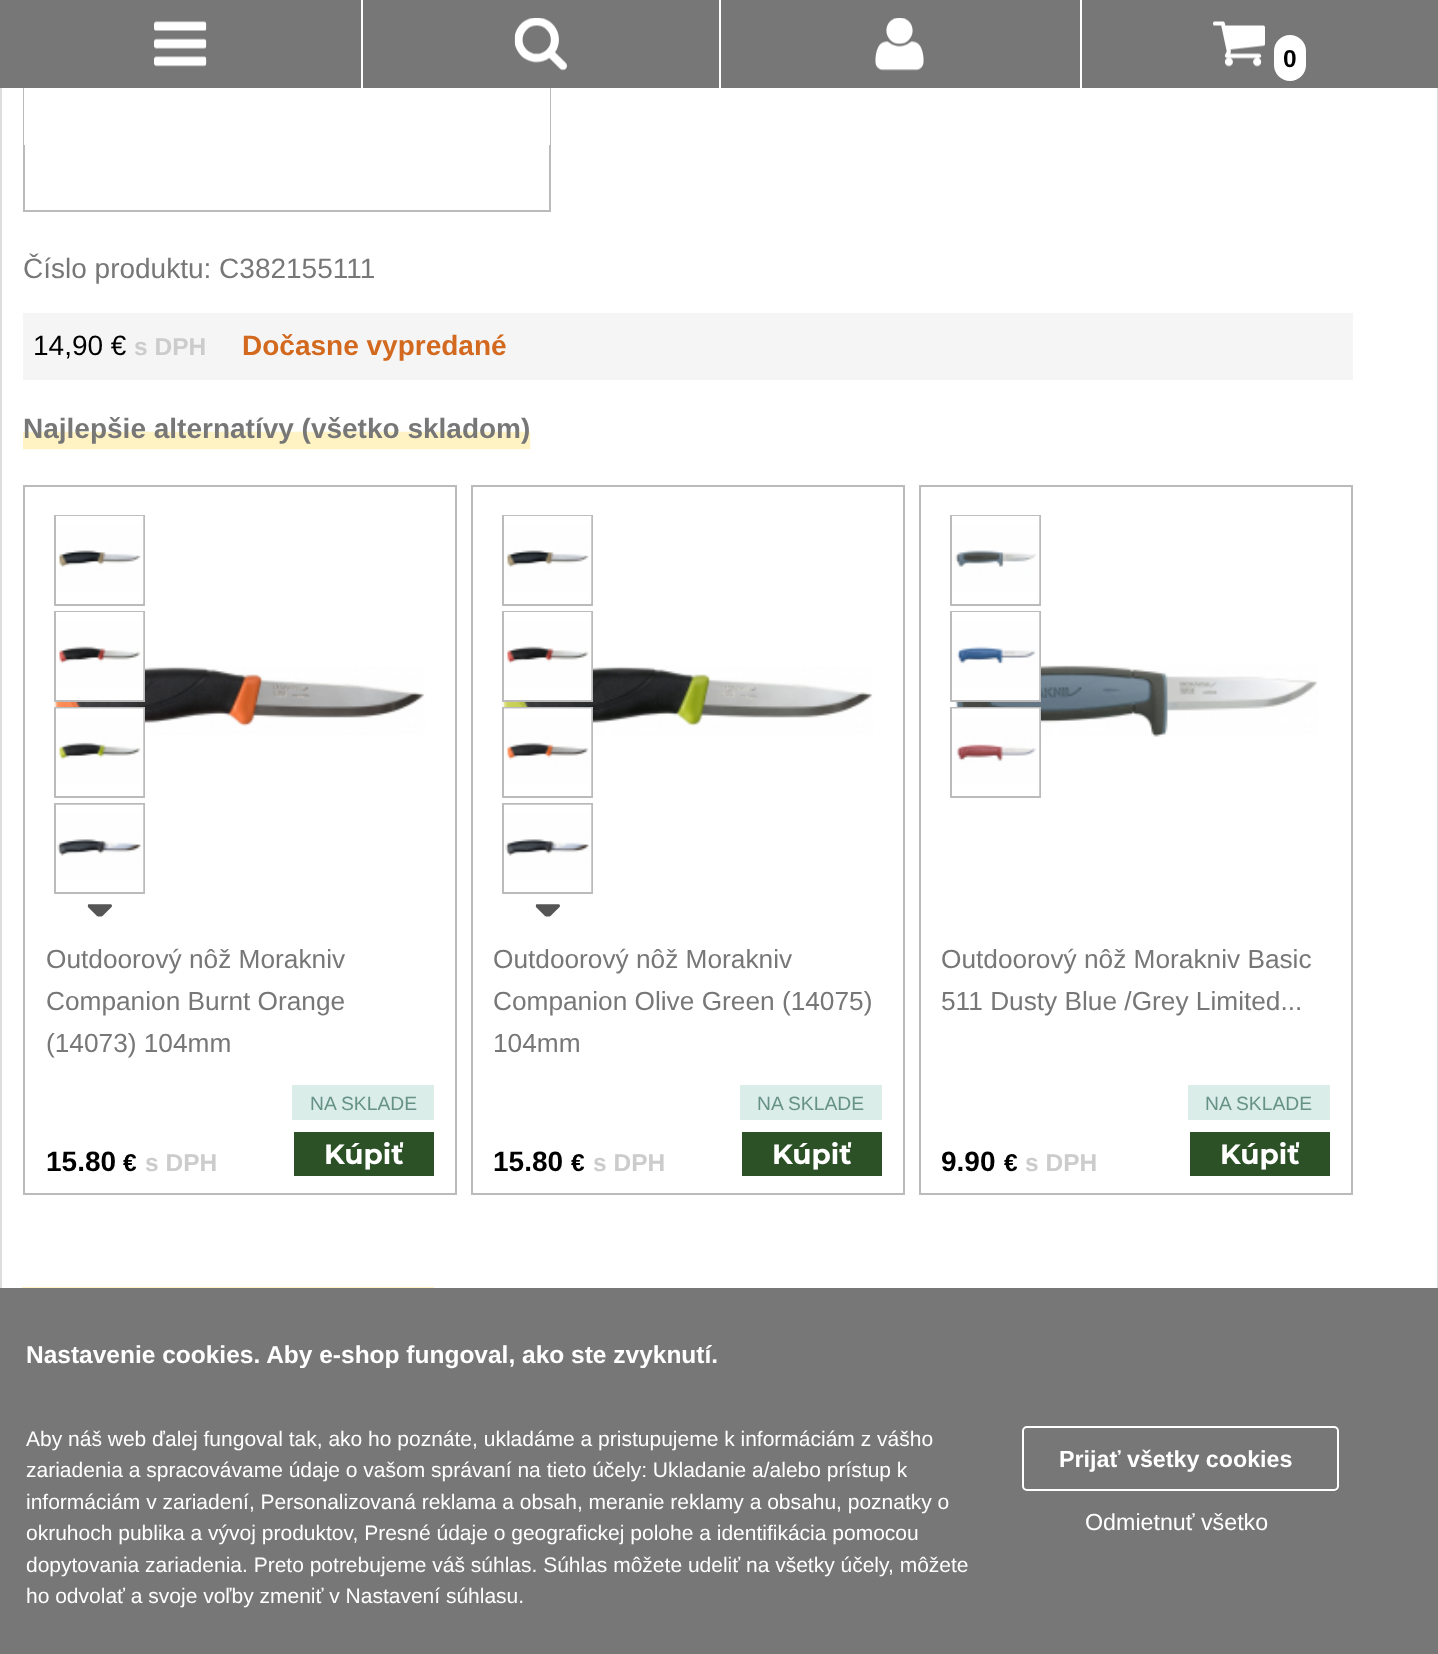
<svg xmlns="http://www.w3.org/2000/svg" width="1438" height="1654">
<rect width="100%" height="100%" fill="#fff"/>
<rect x="1" y="-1" width="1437" height="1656" fill="none" stroke="#ddd" stroke-width="2"/>
<rect x="24" y="-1" width="526" height="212" fill="none" stroke="#bbb" stroke-width="2"/>
<rect width="1438" height="88" fill="#777"/>
<image x="154" y="21" width="53" height="46" href="media/1.png"/>
<rect x="361" width="2" height="88" fill="#fff"/>
<image x="514" y="18" width="53" height="53" href="media/2.png"/>
<rect x="719" width="2" height="88" fill="#fff"/>
<image x="875" y="18" width="49" height="53" href="media/3.png"/>
<rect x="1080" width="2" height="88" fill="#fff"/>
<image x="1213" y="21" width="52" height="46" href="media/4.png"/>
<rect x="1274" y="35" width="32" height="46" rx="16" fill="#fff"/>
<text x="1283" y="67" style="font-family:Liberation Sans;font-size:24.5px;font-weight:bold;fill:#000">0</text>
<rect x="24" y="88" width="526" height="57" fill="#fff"/>
<text x="23" y="278" style="font-family:Liberation Sans;font-size:28px;fill:#777">Číslo produktu: C382155111</text>
<rect x="23" y="313" width="1330" height="67" fill="#f5f5f5"/>
<text x="33" y="355" style="font-family:Liberation Sans;font-size:28px;fill:#000">14,90 €</text>
<text x="134" y="355" style="font-family:Liberation Sans;font-size:24.5px;font-weight:bold;fill:#ccc">s DPH</text>
<text x="242" y="355" style="font-family:Liberation Sans;font-size:28px;font-weight:bold;fill:#d2691e">Dočasne vypredané</text>
<image x="22" y="431" width="509" height="19" href="media/5.png"/>
<text x="23" y="438" style="font-family:Liberation Sans;font-size:28px;font-weight:bold;fill:#777">Najlepšie alternatívy (všetko skladom)</text>
<rect x="24" y="486" width="432" height="708" fill="none" stroke="#bbb" stroke-width="2"/>
<rect x="55" y="516" width="89" height="89" fill="none" stroke="#bbb" stroke-width="2"/>
<image x="56" y="515" width="88" height="88" href="media/6.png"/>
<image x="54" y="666" width="371" height="69" href="media/11.png"/>
<rect x="56" y="699" width="87" height="1" fill="#fff"/>
<rect x="55" y="612" width="89" height="89" fill="none" stroke="#bbb" stroke-width="2"/>
<image x="56" y="612" width="88" height="88" href="media/7.png"/>
<rect x="55" y="708" width="89" height="89" fill="none" stroke="#bbb" stroke-width="2"/>
<image x="56" y="708" width="88" height="88" href="media/8.png"/>
<rect x="55" y="804" width="89" height="89" fill="none" stroke="#bbb" stroke-width="2"/>
<image x="56" y="804" width="88" height="88" href="media/9.png"/>
<image x="87" y="904" width="25" height="13" href="media/10.png"/>
<text x="46" y="968" style="font-family:Liberation Sans;font-size:26.25px;fill:#777">Outdoorový nôž Morakniv</text>
<text x="46" y="1010" style="font-family:Liberation Sans;font-size:26.25px;fill:#777">Companion Burnt Orange</text>
<text x="46" y="1052" style="font-family:Liberation Sans;font-size:26.25px;fill:#777">(14073) 104mm</text>
<rect x="292" y="1085" width="142" height="35" fill="#daede9"/>
<text x="310" y="1110" style="font-family:Liberation Sans;font-size:19.25px;fill:#679286">NA SKLADE</text>
<text x="46" y="1171" style="font-family:Liberation Sans;font-size:28px;font-weight:bold;fill:#000">15.80</text>
<text x="123" y="1171" style="font-family:Liberation Sans;font-size:24.5px;font-weight:bold;fill:#000">€</text>
<text x="145" y="1171" style="font-family:Liberation Sans;font-size:24.5px;font-weight:bold;fill:#ccc">s DPH</text>
<rect x="294" y="1132" width="140" height="44" fill="#2c5127"/>
<text x="324" y="1164" style="font-family:Montserrat;font-size:28px;font-weight:bold;fill:#fff">Kúpiť</text>
<rect x="472" y="486" width="432" height="708" fill="none" stroke="#bbb" stroke-width="2"/>
<rect x="503" y="516" width="89" height="89" fill="none" stroke="#bbb" stroke-width="2"/>
<image x="504" y="515" width="88" height="88" href="media/6.png"/>
<image x="502" y="666" width="371" height="70" href="media/13.png"/>
<rect x="504" y="699" width="87" height="1" fill="#fff"/>
<rect x="503" y="612" width="89" height="89" fill="none" stroke="#bbb" stroke-width="2"/>
<image x="504" y="612" width="88" height="88" href="media/7.png"/>
<rect x="503" y="708" width="89" height="89" fill="none" stroke="#bbb" stroke-width="2"/>
<image x="504" y="708" width="88" height="88" href="media/12.png"/>
<rect x="503" y="804" width="89" height="89" fill="none" stroke="#bbb" stroke-width="2"/>
<image x="504" y="804" width="88" height="88" href="media/9.png"/>
<image x="535" y="904" width="25" height="13" href="media/10.png"/>
<text x="493" y="968" style="font-family:Liberation Sans;font-size:26.25px;fill:#777">Outdoorový nôž Morakniv</text>
<text x="493" y="1010" style="font-family:Liberation Sans;font-size:26.25px;fill:#777">Companion Olive Green (14075)</text>
<text x="493" y="1052" style="font-family:Liberation Sans;font-size:26.25px;fill:#777">104mm</text>
<rect x="740" y="1085" width="142" height="35" fill="#daede9"/>
<text x="757" y="1110" style="font-family:Liberation Sans;font-size:19.25px;fill:#679286">NA SKLADE</text>
<text x="493" y="1171" style="font-family:Liberation Sans;font-size:28px;font-weight:bold;fill:#000">15.80</text>
<text x="571" y="1171" style="font-family:Liberation Sans;font-size:24.5px;font-weight:bold;fill:#000">€</text>
<text x="593" y="1171" style="font-family:Liberation Sans;font-size:24.5px;font-weight:bold;fill:#ccc">s DPH</text>
<rect x="742" y="1132" width="140" height="44" fill="#2c5127"/>
<text x="772" y="1164" style="font-family:Montserrat;font-size:28px;font-weight:bold;fill:#fff">Kúpiť</text>
<rect x="920" y="486" width="432" height="708" fill="none" stroke="#bbb" stroke-width="2"/>
<rect x="951" y="516" width="89" height="89" fill="none" stroke="#bbb" stroke-width="2"/>
<image x="952" y="515" width="88" height="88" href="media/14.png"/>
<image x="955" y="665" width="363" height="72" href="media/17.png"/>
<rect x="952" y="699" width="87" height="1" fill="#fff"/>
<rect x="951" y="612" width="89" height="89" fill="none" stroke="#bbb" stroke-width="2"/>
<image x="952" y="612" width="88" height="88" href="media/15.png"/>
<rect x="951" y="708" width="89" height="89" fill="none" stroke="#bbb" stroke-width="2"/>
<image x="952" y="708" width="88" height="88" href="media/16.png"/>
<text x="941" y="968" style="font-family:Liberation Sans;font-size:26.25px;fill:#777">Outdoorový nôž Morakniv Basic</text>
<text x="941" y="1010" style="font-family:Liberation Sans;font-size:26.25px;fill:#777">511 Dusty Blue /Grey Limited...</text>
<rect x="1188" y="1085" width="142" height="35" fill="#daede9"/>
<text x="1205" y="1110" style="font-family:Liberation Sans;font-size:19.25px;fill:#679286">NA SKLADE</text>
<text x="941" y="1171" style="font-family:Liberation Sans;font-size:28px;font-weight:bold;fill:#000">9.90</text>
<text x="1004" y="1171" style="font-family:Liberation Sans;font-size:24.5px;font-weight:bold;fill:#000">€</text>
<text x="1025" y="1171" style="font-family:Liberation Sans;font-size:24.5px;font-weight:bold;fill:#ccc">s DPH</text>
<rect x="1190" y="1132" width="140" height="44" fill="#2c5127"/>
<text x="1220" y="1164" style="font-family:Montserrat;font-size:28px;font-weight:bold;fill:#fff">Kúpiť</text>
<rect x="22" y="1287" width="412" height="1" fill="#fff2c3"/>
<rect y="1288" width="1438" height="366" fill="#777"/>
<text x="26" y="1363" style="font-family:Liberation Sans;font-size:24.5px;font-weight:bold;fill:#fff">Nastavenie cookies. Aby e-shop fungoval, ako ste zvyknutí.</text>
<text x="26" y="1446" style="font-family:Liberation Sans;font-size:21px;fill:#fff">Aby náš web ďalej fungoval tak, ako ho poznáte, ukladáme a pristupujeme k informáciám z vášho</text>
<text x="26" y="1477" style="font-family:Liberation Sans;font-size:21px;fill:#fff">zariadenia a spracovávame údaje o vašom správaní na tieto účely: Ukladanie a/alebo prístup k</text>
<text x="26" y="1509" style="font-family:Liberation Sans;font-size:21px;fill:#fff">informáciám v zariadení, Personalizovaná reklama a obsah, meranie reklamy a obsahu, poznatky o</text>
<text x="26" y="1540" style="font-family:Liberation Sans;font-size:21px;fill:#fff">okruhoch publika a vývoj produktov, Presné údaje o geografickej polohe a identifikácia pomocou</text>
<text x="26" y="1572" style="font-family:Liberation Sans;font-size:21px;fill:#fff">dopytovania zariadenia. Preto potrebujeme váš súhlas. Súhlas môžete udeliť na všetky účely, môžete</text>
<text x="26" y="1603" style="font-family:Liberation Sans;font-size:21px;fill:#fff">ho odvolať a svoje voľby zmeniť v Nastavení súhlasu.</text>
<rect x="1023" y="1427" width="315" height="63" rx="4" fill="none" stroke="#fff" stroke-width="2"/>
<text x="1059" y="1467" style="font-family:Liberation Sans;font-size:23.25px;font-weight:bold;fill:#fff">Prijať všetky cookies</text>
<text x="1085" y="1530" style="font-family:Liberation Sans;font-size:23.25px;fill:#fff">Odmietnuť všetko</text>
</svg>
